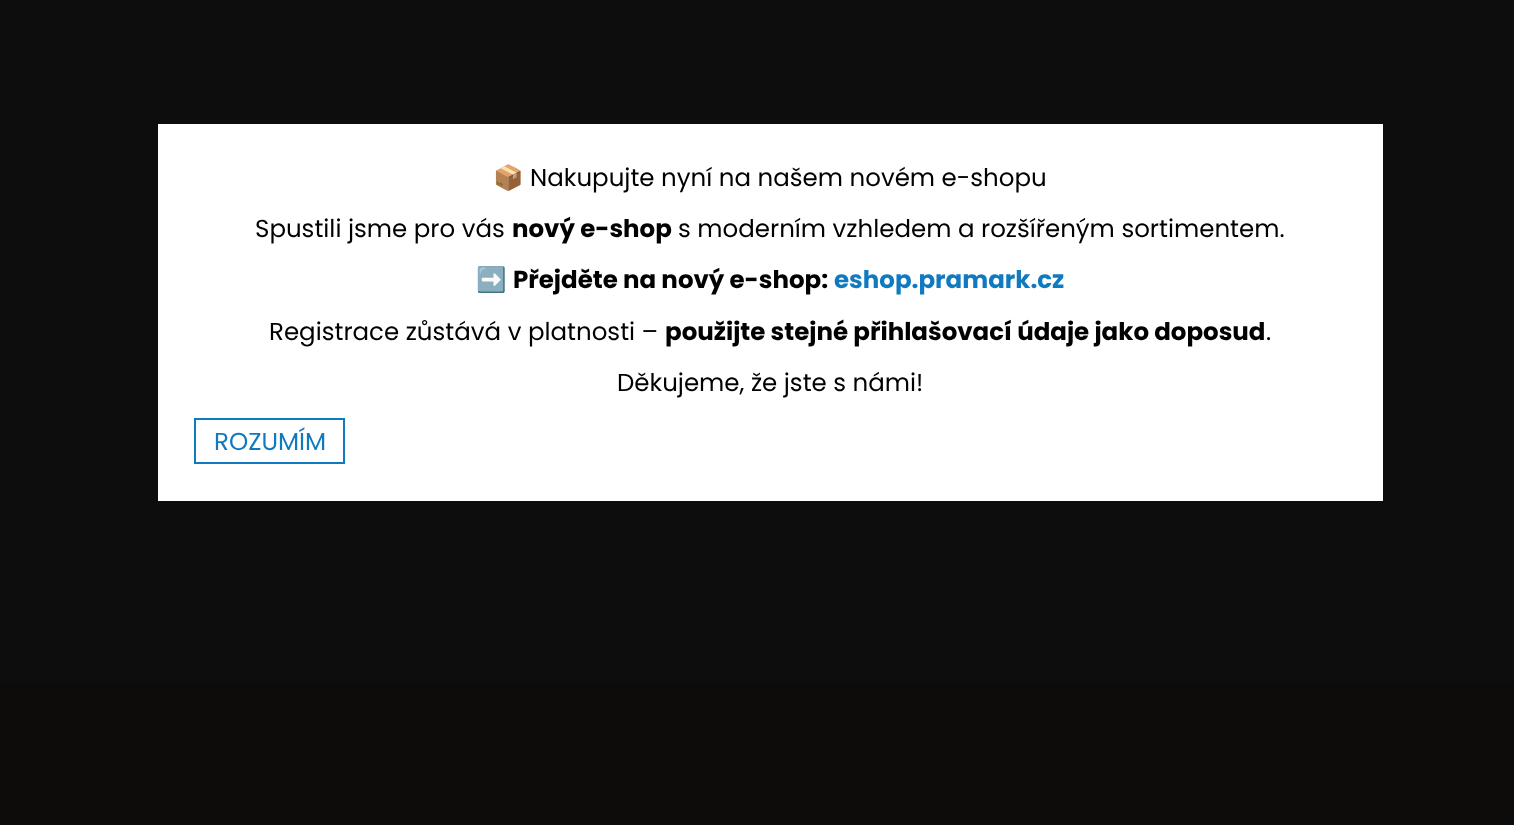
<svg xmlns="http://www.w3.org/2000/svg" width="1540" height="825">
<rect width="100%" height="100%" fill="#fff"/>
<rect width="1514" height="683" fill="#0d0d0d"/>
<rect y="683" width="1514" height="142" fill="#0d0c0b"/>
<rect x="158" y="124" width="1225" height="377" fill="#fff"/>
<text x="493" y="186" style="font-family:Noto Color Emoji;font-size:24.5px;fill:#000">📦</text>
<text x="530" y="186" style="font-family:Poppins;font-size:24.5px;fill:#000">Nakupujte nyní na našem novém e-shopu</text>
<text x="255" y="237" style="font-family:Poppins;font-size:24.5px;fill:#000">Spustili jsme pro vás</text>
<text x="512" y="237" style="font-family:Poppins;font-size:24.5px;font-weight:bold;fill:#000">nový e-shop</text>
<text x="678" y="237" style="font-family:Poppins;font-size:24.5px;fill:#000">s moderním vzhledem a rozšířeným sortimentem.</text>
<text x="476" y="288" style="font-family:Noto Color Emoji;font-size:24.5px;fill:#000">➡️</text>
<text x="513" y="288" style="font-family:Poppins;font-size:24.5px;font-weight:bold;fill:#000">Přejděte na nový e-shop:</text>
<text x="834" y="288" style="font-family:Poppins;font-size:24.5px;font-weight:bold;fill:#107ac1">eshop.pramark.cz</text>
<text x="269" y="340" style="font-family:Poppins;font-size:24.5px;fill:#000">Registrace zůstává v platnosti –</text>
<text x="665" y="340" style="font-family:Poppins;font-size:24.5px;font-weight:bold;fill:#000">použijte stejné přihlašovací údaje jako doposud</text>
<text x="1266" y="340" style="font-family:Poppins;font-size:24.5px;fill:#000">.</text>
<text x="617" y="391" style="font-family:Poppins;font-size:24.5px;fill:#000">Děkujeme, že jste s námi!</text>
<rect x="195" y="419" width="149" height="44" fill="none" stroke="#107ac1" stroke-width="2"/>
<text x="214" y="450" style="font-family:Poppins;font-size:24.5px;fill:#107ac1">ROZUMÍM</text>
</svg>
